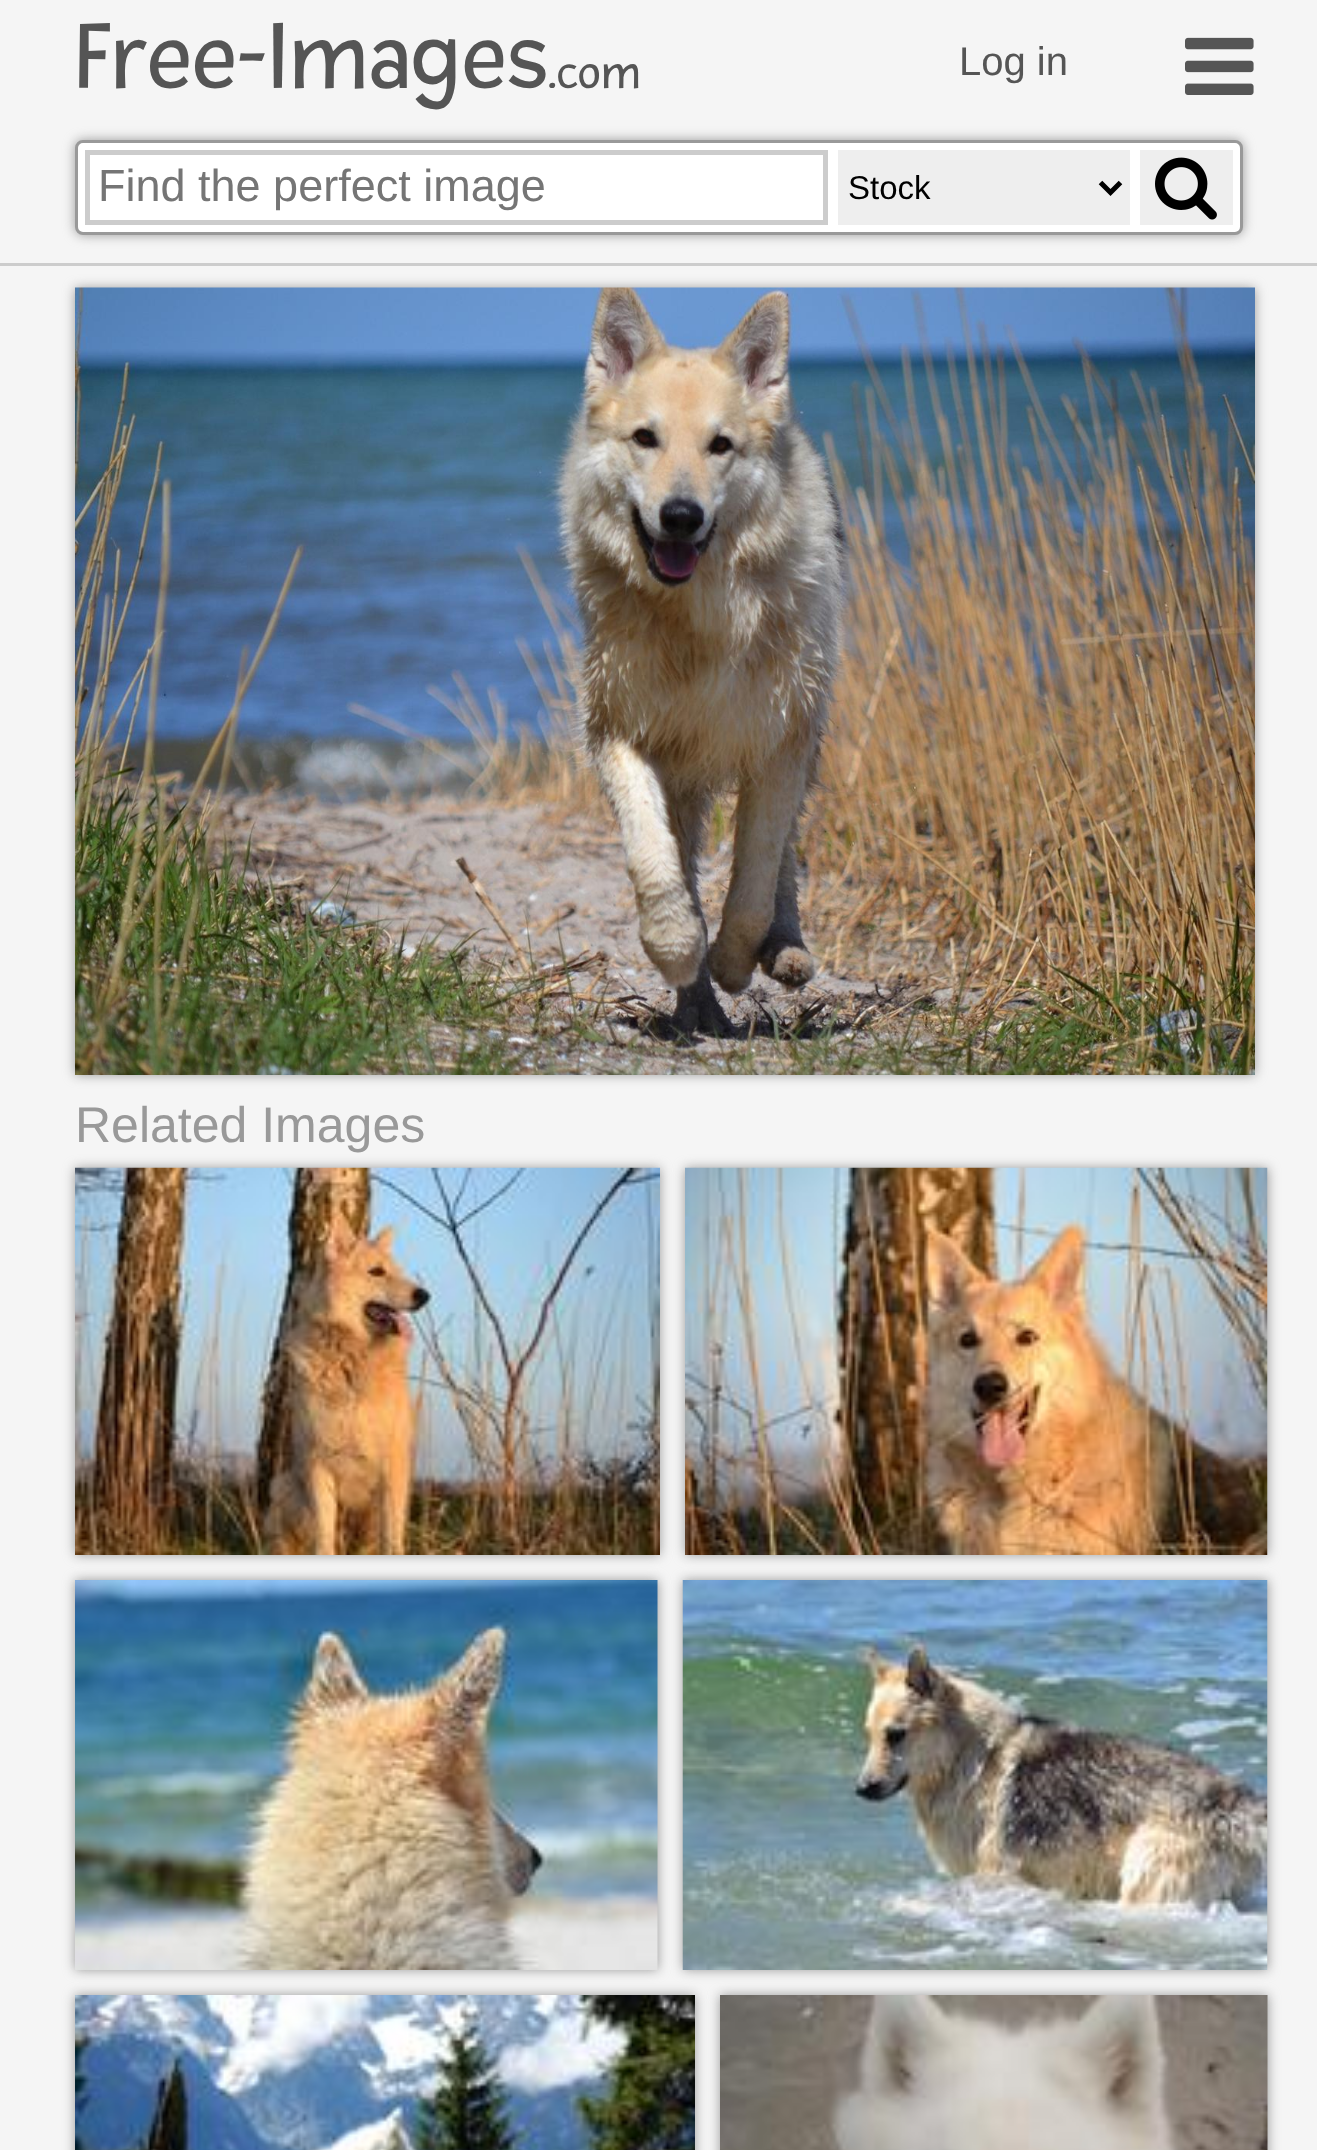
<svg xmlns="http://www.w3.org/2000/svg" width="1317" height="2150">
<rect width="100%" height="100%" fill="#f5f5f5"/>
<rect y="263" width="1317" height="3" fill="#ccc"/>
<text x="75" y="88" style="font-family:Fresca;font-size:100px;fill:#555">Free-Images</text>
<text x="548" y="88" style="font-family:Fresca;font-size:50px;fill:#555">.com</text>
<rect x="75" y="140" width="1168" height="95" rx="8" fill="#999" filter="blur(6px)"/>
<rect x="76.5" y="141.5" width="1165" height="92" rx="6.5" fill="#fff" stroke="#999" stroke-width="3"/>
<rect x="87.5" y="152.5" width="738" height="70" fill="none" stroke="#ccc" stroke-width="5"/>
<text x="98" y="201" style="font-family:Liberation Sans;font-size:45px;fill:#757575">Find the perfect image</text>
<rect x="838" y="150" width="292" height="75" fill="#eee"/>
<path d="M1100.5 182.5l10 10l10-10" fill="none" stroke="#000" stroke-width="5"/>
<text x="848" y="199" style="font-family:Liberation Sans;font-size:33px;fill:#000">Stock</text>
<rect x="1140" y="150" width="93" height="75" fill="#eee"/>
<image x="1155" y="157" width="62" height="63" href="media/1.png"/>
<text x="959" y="75" style="font-family:Liberation Sans;font-size:40px;fill:#555">Log in</text>
<image x="1185" y="37" width="69" height="58" href="media/2.png"/>
<rect x="75" y="288" width="1180" height="787" fill="#999" filter="blur(6px)"/>
<image x="75" y="287" width="1180" height="788" href="media/3.png"/>
<text x="75" y="1142" style="font-family:Liberation Sans;font-size:50px;fill:#999">Related Images</text>
<rect x="75" y="1168" width="585" height="387" fill="#999" filter="blur(6px)"/>
<image x="75" y="1167" width="585" height="388" href="media/4.png"/>
<rect x="685" y="1168" width="583" height="387" fill="#999" filter="blur(6px)"/>
<image x="685" y="1167" width="583" height="388" href="media/5.png"/>
<rect x="75" y="1580" width="583" height="390" fill="#999" filter="blur(6px)"/>
<image x="75" y="1580" width="583" height="390" href="media/6.png"/>
<rect x="683" y="1580" width="585" height="390" fill="#999" filter="blur(6px)"/>
<image x="682" y="1580" width="586" height="390" href="media/7.png"/>
<rect x="75" y="1995" width="620" height="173" fill="#999" filter="blur(6px)"/>
<image x="75" y="1995" width="620" height="155" href="media/8.png"/>
<rect x="720" y="1995" width="548" height="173" fill="#999" filter="blur(6px)"/>
<image x="720" y="1995" width="548" height="155" href="media/9.png"/>
</svg>
